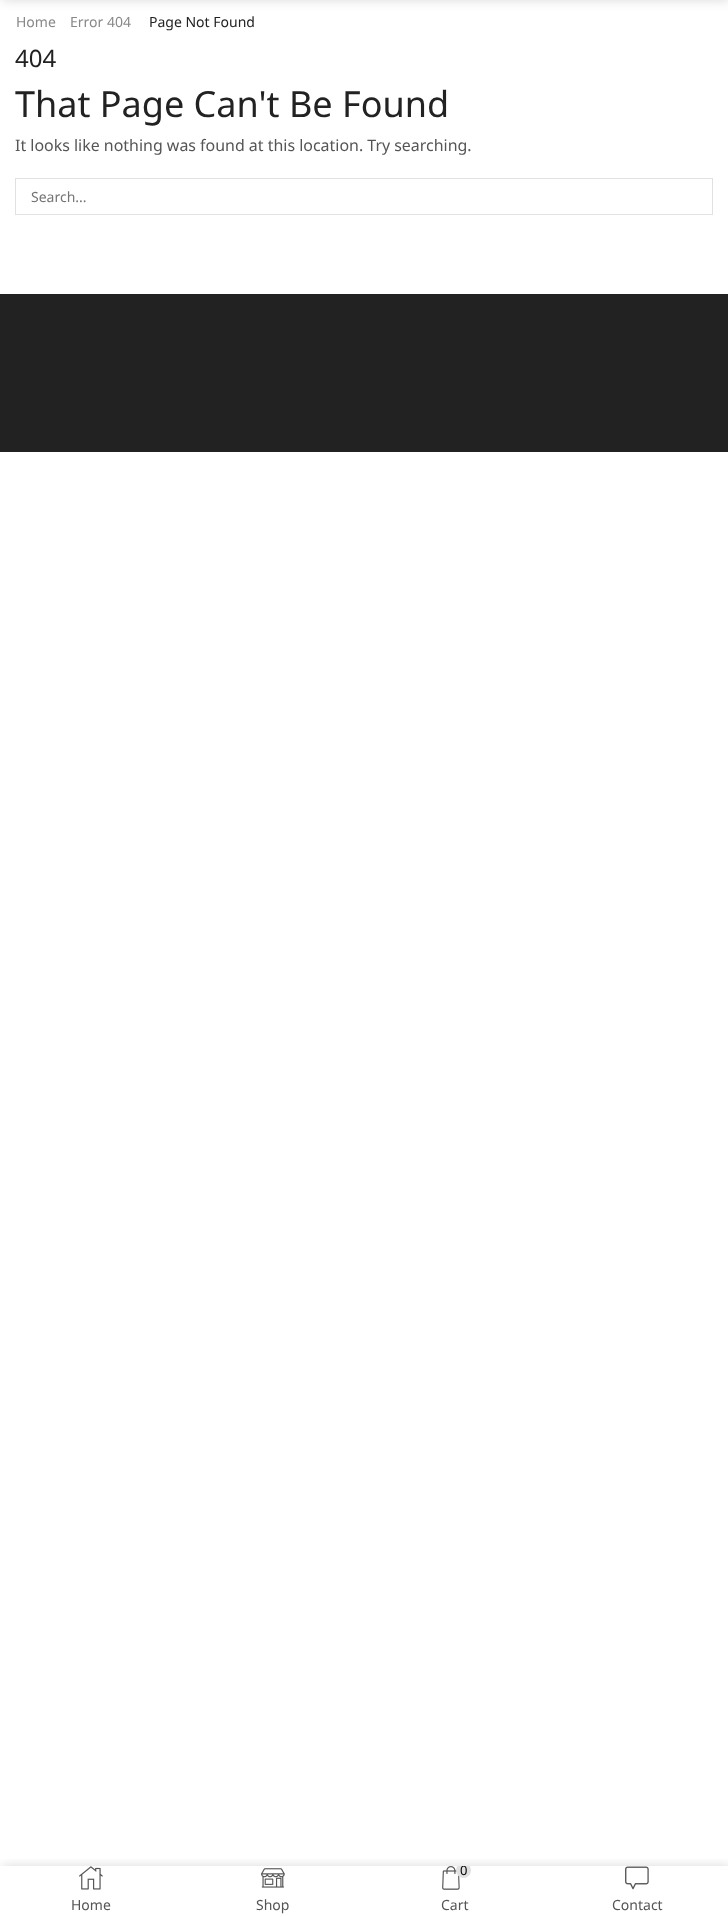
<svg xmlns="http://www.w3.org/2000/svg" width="728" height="1917">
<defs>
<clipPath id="clip1"><rect x="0" y="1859" width="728" height="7"/></clipPath>
<clipPath id="clip2"><rect y="1866" width="728" height="51"/></clipPath>
</defs>
<rect width="100%" height="100%" fill="#fff"/>
<rect x="2" y="-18" width="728" height="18" fill="#00000026" filter="blur(6px)"/>
<text x="16" y="27" style="font-family:Noto Sans;font-size:14px;fill:#888">Home</text>
<text x="70" y="27" style="font-family:Noto Sans;font-size:14px;fill:#888">Error 404</text>
<text x="149" y="27" style="font-family:Noto Sans;font-size:14px;fill:#222">Page Not Found</text>
<text x="15" y="67" style="font-family:Noto Sans;font-size:24px;fill:#222">404</text>
<text x="15" y="117" style="font-family:Noto Sans;font-size:36px;fill:#222">That Page Can't Be Found</text>
<text x="15" y="151" style="font-family:Noto Sans;font-size:15.95px;fill:#555">It looks like nothing was found at this location. Try searching.</text>
<rect x="15.5" y="178.5" width="697" height="36" fill="none" stroke="#e1e1e1"/>
<text x="31" y="202" style="font-family:Noto Sans;font-size:14px;fill:#757575">Search...</text>
<rect y="294" width="728" height="158" fill="#222"/>
<g clip-path="url(#clip1)">
<rect x="2" y="1866" width="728" height="51" fill="#00000026" filter="blur(6px)"/>
</g>
<image x="79" y="1866" width="24" height="24" href="media/1.png"/>
<text x="71" y="1910" style="font-family:Noto Sans;font-size:14px;fill:#555">Home</text>
<image x="261" y="1868" width="24" height="20" href="media/2.png"/>
<text x="256" y="1910" style="font-family:Noto Sans;font-size:14px;fill:#555">Shop</text>
<image x="442" y="1866" width="18" height="24" href="media/3.png"/>
<g clip-path="url(#clip2)">
<circle cx="463.5" cy="1870.5" r="7.5" fill="#e1e1e1"/>
<text x="460" y="1875" style="font-family:Noto Sans;font-size:13px;fill:#000">0</text>
</g>
<text x="441" y="1910" style="font-family:Noto Sans;font-size:14px;fill:#555">Cart</text>
<image x="625" y="1866" width="24" height="24" href="media/4.png"/>
<text x="612" y="1910" style="font-family:Noto Sans;font-size:14px;fill:#555">Contact</text>
</svg>
